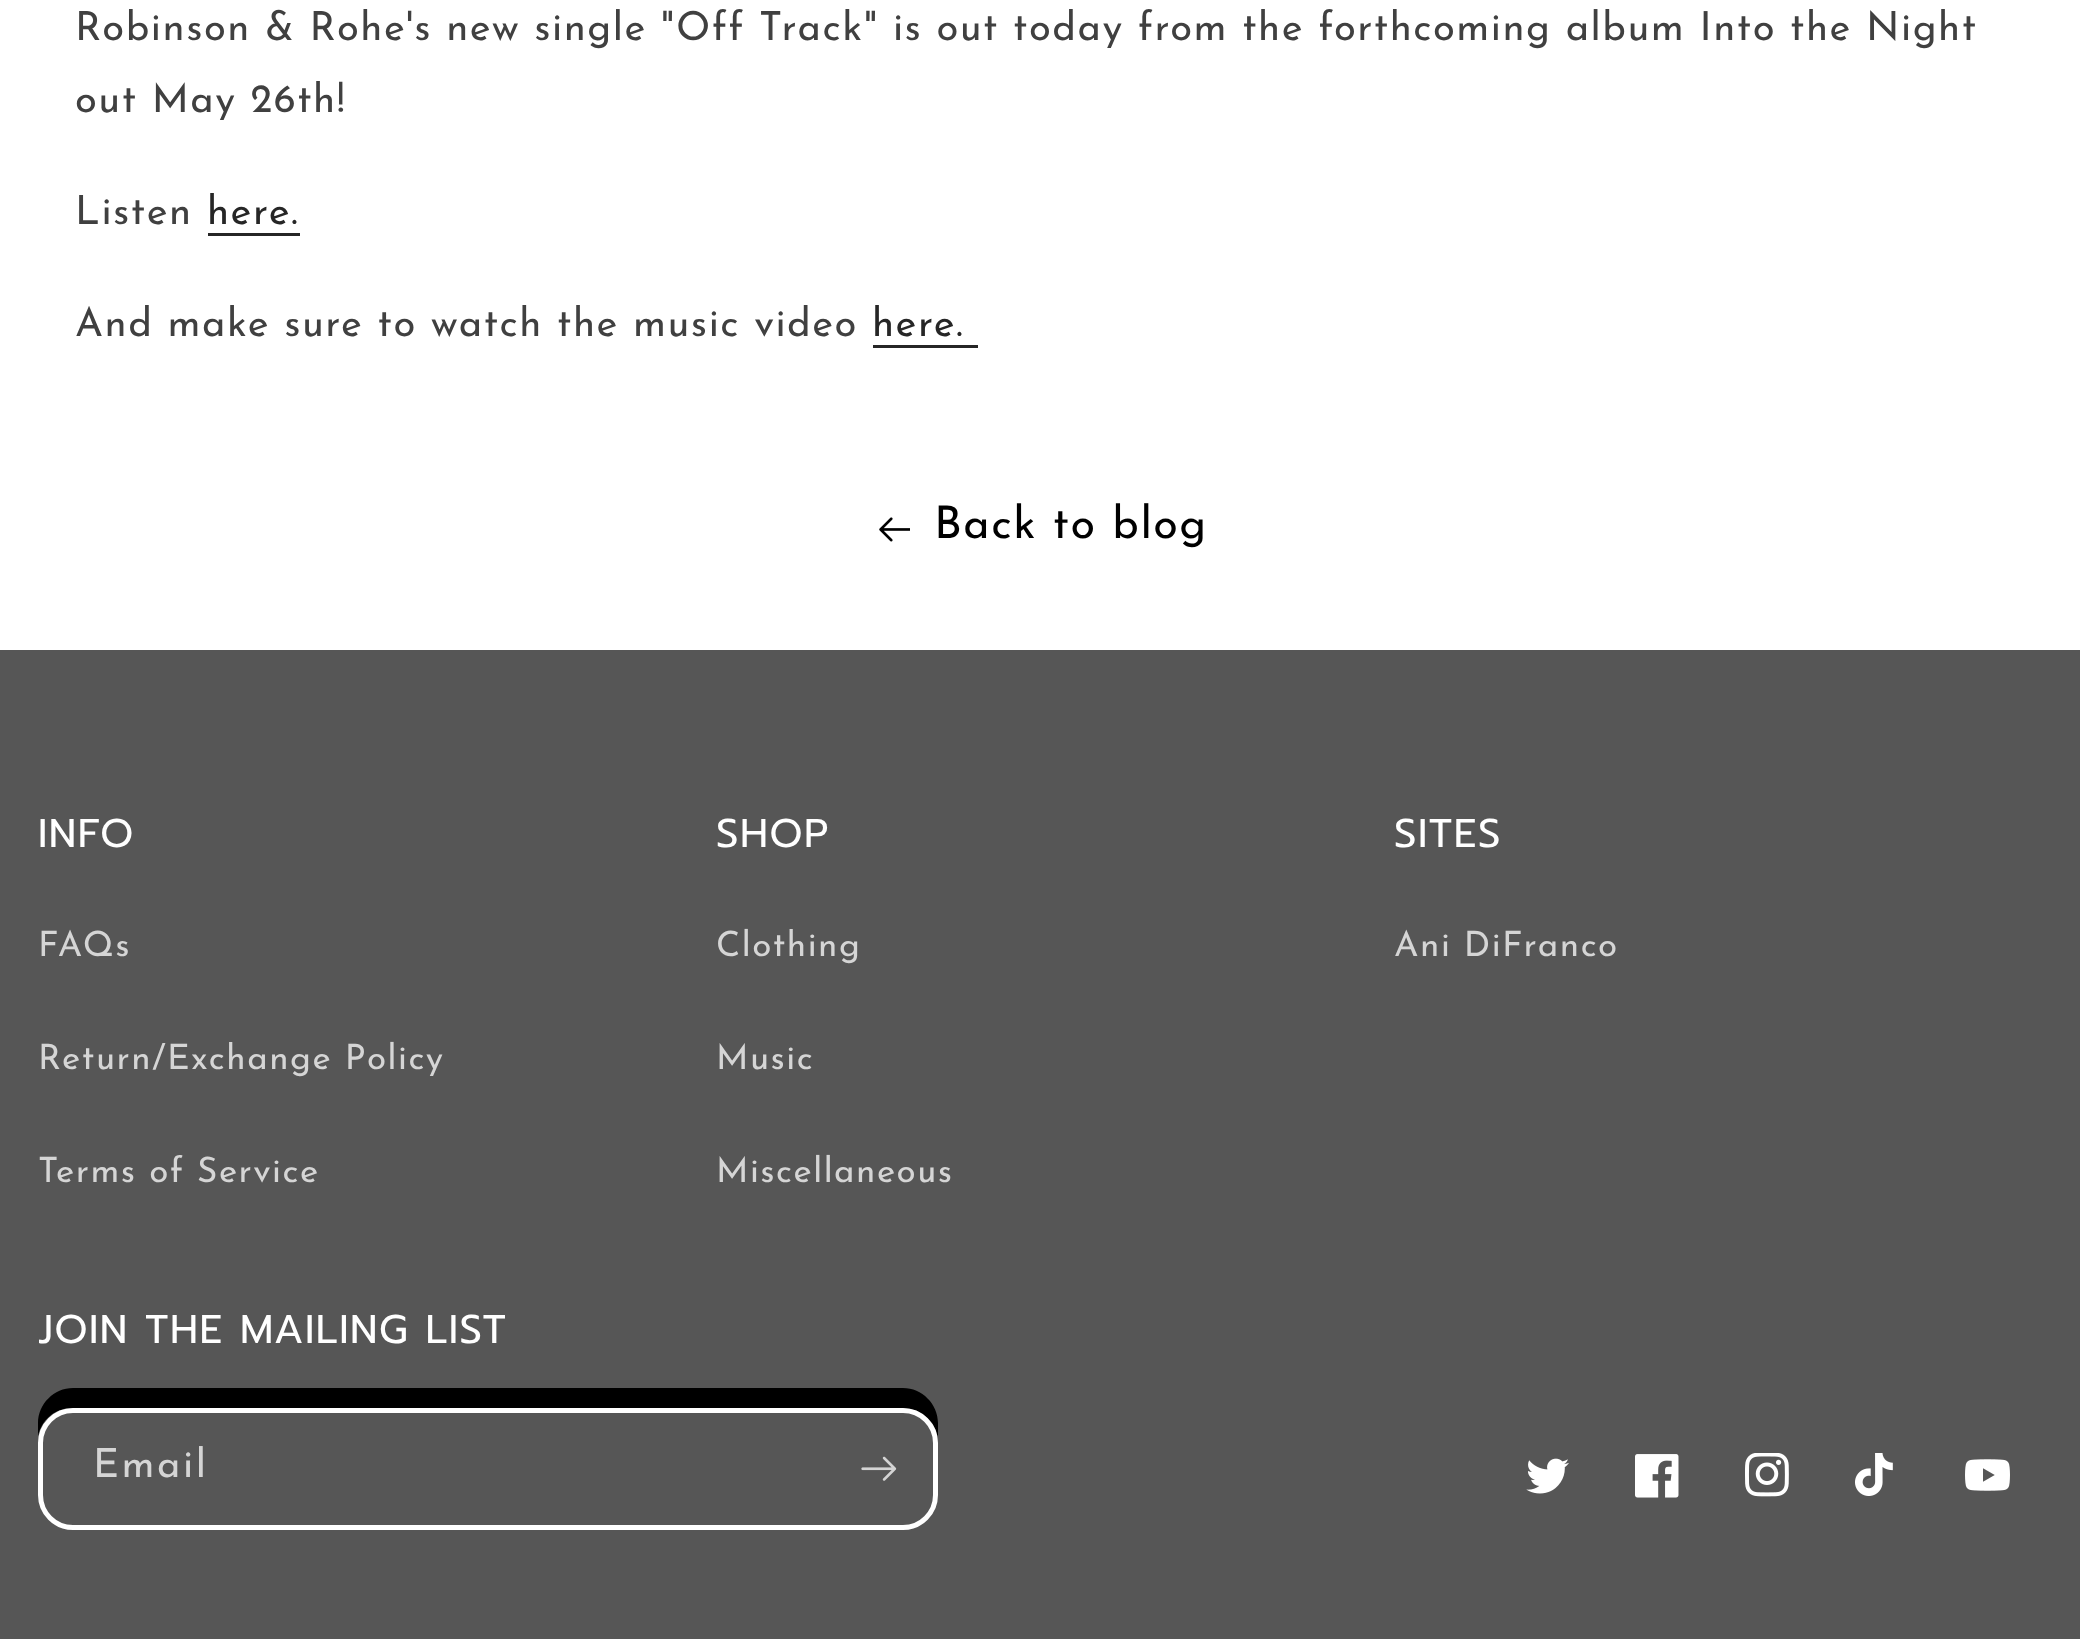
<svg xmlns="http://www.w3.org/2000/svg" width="2080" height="1639">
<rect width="100%" height="100%" fill="#fff"/>
<text x="75" y="40" style="font-family:Josefin Sans;font-size:40px;letter-spacing:1.5px;fill:#404040">Robinson &amp; Rohe's new single "Off Track" is out today from the forthcoming album Into the Night</text>
<text x="75" y="112" style="font-family:Josefin Sans;font-size:40px;letter-spacing:1.5px;fill:#404040">out May 26th!</text>
<text x="75" y="224" style="font-family:Josefin Sans;font-size:40px;letter-spacing:1.5px;fill:#404040">Listen</text>
<text x="207" y="224" style="font-family:Josefin Sans;font-size:40px;letter-spacing:1.5px;fill:#262626">here.</text>
<rect x="208" y="233" width="92" height="3" fill="#262626"/>
<text x="75" y="336" style="font-family:Josefin Sans;font-size:40px;letter-spacing:1.5px;fill:#404040">And make sure to watch the music video</text>
<text x="872" y="336" style="font-family:Josefin Sans;font-size:40px;letter-spacing:1.5px;fill:#262626">here.</text>
<rect x="873" y="345" width="105" height="3" fill="#262626"/>
<image x="879" y="517" width="31" height="25" href="media/1.png"/>
<text x="934" y="538" style="font-family:Josefin Sans;font-size:45px;letter-spacing:1.5px;fill:#000">Back to blog</text>
<rect y="650" width="2080" height="989" fill="#565656"/>
<text x="38" y="847" style="font-family:Prompt;font-size:40px;letter-spacing:1.5px;fill:#fff">INFO</text>
<text x="38" y="956" style="font-family:Josefin Sans;font-size:35px;letter-spacing:1.5px;fill:#d5d5d5">FAQs</text>
<text x="38" y="1069" style="font-family:Josefin Sans;font-size:35px;letter-spacing:1.5px;fill:#d5d5d5">Return/Exchange Policy</text>
<text x="38" y="1182" style="font-family:Josefin Sans;font-size:35px;letter-spacing:1.5px;fill:#d5d5d5">Terms of Service</text>
<text x="716" y="847" style="font-family:Prompt;font-size:40px;letter-spacing:1.5px;fill:#fff">SHOP</text>
<text x="716" y="956" style="font-family:Josefin Sans;font-size:35px;letter-spacing:1.5px;fill:#d5d5d5">Clothing</text>
<text x="716" y="1069" style="font-family:Josefin Sans;font-size:35px;letter-spacing:1.5px;fill:#d5d5d5">Music</text>
<text x="716" y="1182" style="font-family:Josefin Sans;font-size:35px;letter-spacing:1.5px;fill:#d5d5d5">Miscellaneous</text>
<text x="1394" y="847" style="font-family:Prompt;font-size:40px;letter-spacing:1.5px;fill:#fff">SITES</text>
<text x="1394" y="956" style="font-family:Josefin Sans;font-size:35px;letter-spacing:1.5px;fill:#d5d5d5">Ani DiFranco</text>
<text x="38" y="1343" style="font-family:Prompt;font-size:40px;letter-spacing:1.5px;fill:#fff">JOIN THE MAILING LIST</text>
<path d="M73 1388c-19 0-35 16-35 35v14c3-17 17-29 34-29h830c20 0 36 15 36 34v39v-6v-52c0-19-16-35-35-35z" fill="#000"/>
<rect x="40.5" y="1410.5" width="895" height="117" rx="32.5" fill="none" stroke="#fff" stroke-width="5"/>
<text x="93" y="1477" style="font-family:Josefin Sans;font-size:40px;letter-spacing:2.5px;fill:#d5d5d5">Email</text>
<image x="861" y="1456" width="36" height="25" href="media/2.png"/>
<image x="1526" y="1458" width="43" height="36" href="media/3.png"/>
<image x="1635" y="1454" width="44" height="44" href="media/4.png"/>
<image x="1745" y="1453" width="44" height="44" href="media/5.png"/>
<image x="1855" y="1453" width="38" height="43" href="media/6.png"/>
<image x="1965" y="1459" width="45" height="32" href="media/7.png"/>
</svg>
